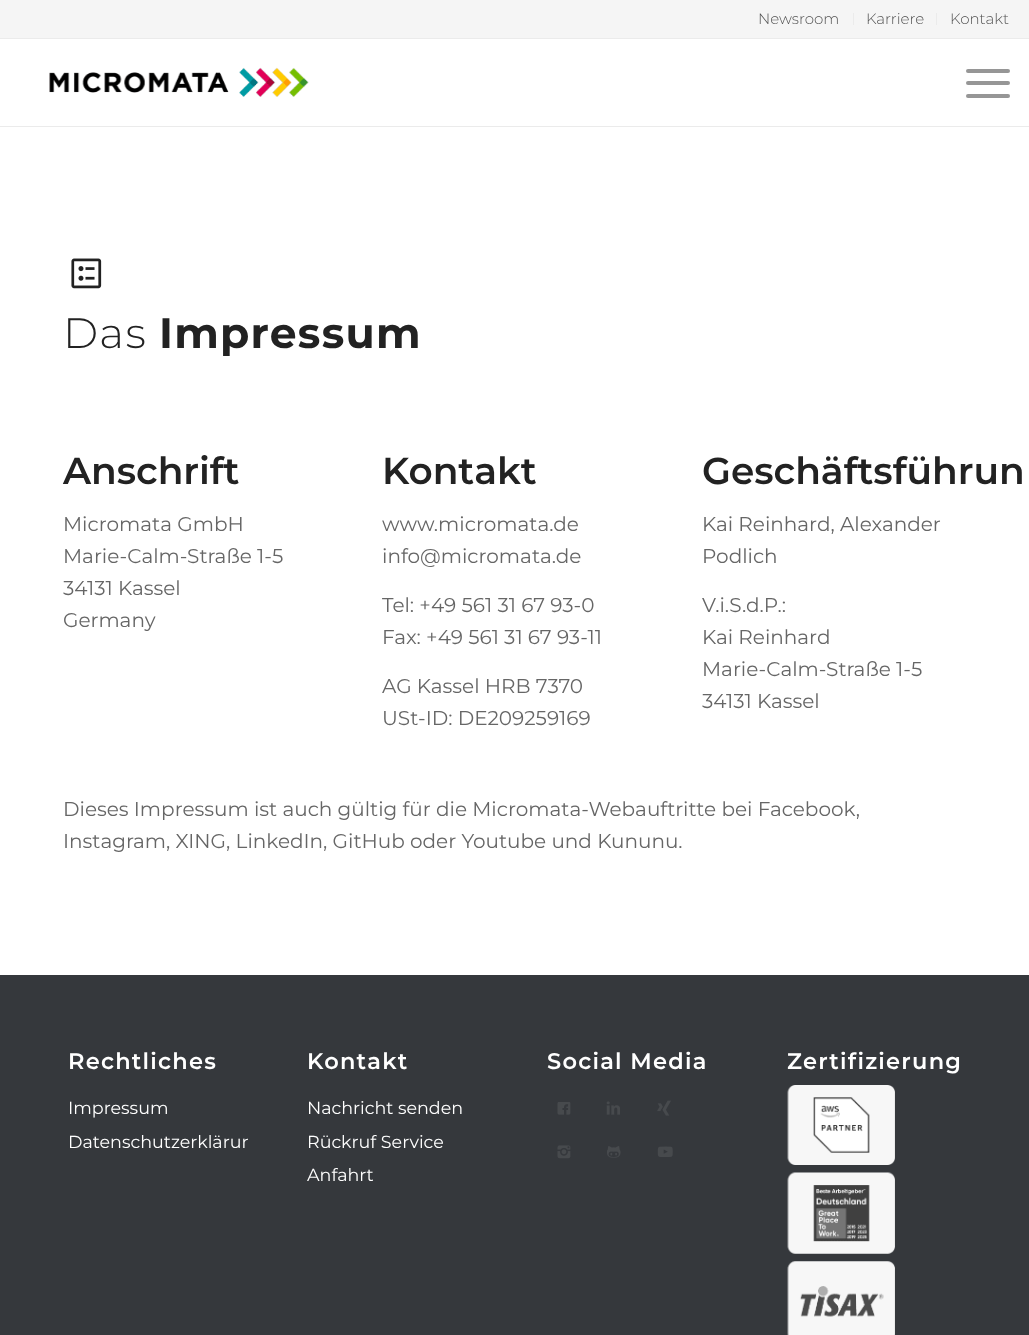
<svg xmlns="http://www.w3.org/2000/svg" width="1029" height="1335">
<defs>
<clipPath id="clip1"><rect x="63" y="250" width="905" height="106"/></clipPath>
<clipPath id="clip2"><rect x="63" y="1031" width="185" height="144"/></clipPath>
</defs>
<rect width="100%" height="100%" fill="#fff"/>
<rect width="1029" height="38" fill="#f5f5f5"/>
<rect y="38" width="1029" height="1" fill="#ebebeb"/>
<rect x="853" y="13" width="1" height="12" fill="#ebebeb"/>
<text x="758" y="24" style="font-family:Montserrat;font-size:15px;font-weight:300;fill:#535353">Newsroom</text>
<rect x="936" y="13" width="1" height="12" fill="#ebebeb"/>
<text x="866" y="24" style="font-family:Montserrat;font-size:15px;font-weight:300;fill:#535353">Karriere</text>
<text x="950" y="24" style="font-family:Montserrat;font-size:15px;font-weight:300;fill:#535353">Kontakt</text>
<rect y="126" width="1029" height="1" fill="#ebebeb"/>
<image x="49" y="67" width="260" height="30" href="media/1.png"/>
<rect x="966" y="81" width="44" height="4" rx="2" fill="#969696"/>
<rect x="966" y="69" width="44" height="4" rx="2" fill="#969696"/>
<rect x="966" y="94" width="44" height="4" rx="2" fill="#969696"/>
<image x="71" y="258" width="31" height="31" href="media/2.png"/>
<text x="63" y="348" style="font-family:Montserrat;font-size:42.5px;font-weight:300;letter-spacing:1.25px;fill:#222">Das</text>
<g clip-path="url(#clip1)">
<text x="159" y="348" style="font-family:Montserrat;font-size:42.5px;font-weight:bold;letter-spacing:1.25px;fill:#222">Impressum</text>
</g>
<text x="63" y="484" style="font-family:Montserrat;font-size:37.5px;font-weight:600;fill:#222">Anschrift</text>
<text x="63" y="531" style="font-family:Montserrat;font-size:20px;fill:#666">Micromata GmbH</text>
<text x="63" y="563" style="font-family:Montserrat;font-size:20px;fill:#666">Marie-Calm-Straße 1-5</text>
<text x="63" y="595" style="font-family:Montserrat;font-size:20px;fill:#666">34131 Kassel</text>
<text x="63" y="627" style="font-family:Montserrat;font-size:20px;fill:#666">Germany</text>
<text x="382" y="484" style="font-family:Montserrat;font-size:37.5px;font-weight:600;fill:#222">Kontakt</text>
<text x="382" y="531" style="font-family:Montserrat;font-size:20px;fill:#666">www.micromata.de</text>
<text x="382" y="563" style="font-family:Montserrat;font-size:20px;fill:#666">info@micromata.de</text>
<text x="382" y="612" style="font-family:Montserrat;font-size:20px;fill:#666">Tel: +49 561 31 67 93-0</text>
<text x="382" y="644" style="font-family:Montserrat;font-size:20px;fill:#666">Fax: +49 561 31 67 93-11</text>
<text x="382" y="693" style="font-family:Montserrat;font-size:20px;fill:#666">AG Kassel HRB 7370</text>
<text x="382" y="725" style="font-family:Montserrat;font-size:20px;fill:#666">USt-ID: DE209259169</text>
<text x="702" y="484" style="font-family:Montserrat;font-size:37.5px;font-weight:600;fill:#222">Geschäftsführun</text>
<text x="702" y="531" style="font-family:Montserrat;font-size:20px;fill:#666">Kai Reinhard, Alexander</text>
<text x="702" y="563" style="font-family:Montserrat;font-size:20px;fill:#666">Podlich</text>
<text x="702" y="612" style="font-family:Montserrat;font-size:20px;fill:#666">V.i.S.d.P.:</text>
<text x="702" y="644" style="font-family:Montserrat;font-size:20px;fill:#666">Kai Reinhard</text>
<text x="702" y="676" style="font-family:Montserrat;font-size:20px;fill:#666">Marie-Calm-Straße 1-5</text>
<text x="702" y="708" style="font-family:Montserrat;font-size:20px;fill:#666">34131 Kassel</text>
<text x="63" y="816" style="font-family:Montserrat;font-size:20px;fill:#666">Dieses Impressum ist auch gültig für die Micromata-Webauftritte bei Facebook,</text>
<text x="63" y="848" style="font-family:Montserrat;font-size:20px;fill:#666">Instagram, XING, LinkedIn, GitHub oder Youtube und Kununu.</text>
<rect y="975" width="1029" height="360" fill="#35383c"/>
<text x="68" y="1069" style="font-family:Montserrat;font-size:22.5px;font-weight:600;letter-spacing:1.25px;fill:#fff">Rechtliches</text>
<text x="68" y="1114" style="font-family:Montserrat;font-size:17.5px;fill:#fff">Impressum</text>
<g clip-path="url(#clip2)">
<text x="68" y="1148" style="font-family:Montserrat;font-size:17.5px;fill:#fff">Datenschutzerklärun</text>
</g>
<text x="307" y="1069" style="font-family:Montserrat;font-size:22.5px;font-weight:600;letter-spacing:1.25px;fill:#fff">Kontakt</text>
<text x="307" y="1114" style="font-family:Montserrat;font-size:17.5px;fill:#fff">Nachricht senden</text>
<text x="307" y="1148" style="font-family:Montserrat;font-size:17.5px;fill:#fff">Rückruf Service</text>
<text x="307" y="1181" style="font-family:Montserrat;font-size:17.5px;fill:#fff">Anfahrt</text>
<text x="547" y="1069" style="font-family:Montserrat;font-size:22.5px;font-weight:600;letter-spacing:1.25px;fill:#fff">Social Media</text>
<image x="557" y="1102" width="14" height="13" href="media/3.png"/>
<image x="606" y="1101" width="14" height="14" href="media/4.png"/>
<image x="657" y="1100" width="14" height="16" href="media/5.png"/>
<image x="557" y="1145" width="14" height="14" href="media/6.png"/>
<image x="607" y="1146" width="14" height="12" href="media/7.png"/>
<image x="657" y="1146" width="16" height="11" href="media/8.png"/>
<text x="787" y="1069" style="font-family:Montserrat;font-size:22.5px;font-weight:600;letter-spacing:1.25px;fill:#fff">Zertifizierung</text>
<image x="787" y="1085" width="108" height="80" href="media/9.png"/>
<image x="787" y="1172" width="108" height="82" href="media/10.png"/>
<image x="787" y="1261" width="108" height="74" href="media/11.png"/>
</svg>
